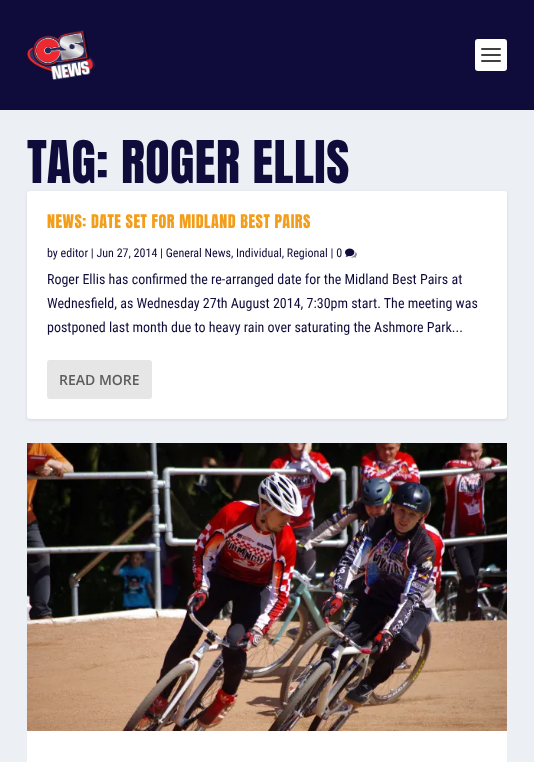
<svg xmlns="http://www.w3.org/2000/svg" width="534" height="762">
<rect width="100%" height="100%" fill="#ecf0f5"/>
<rect width="534" height="110" fill="#0f0b3a"/>
<image x="27" y="30" width="68" height="50" href="media/1.png"/>
<rect x="475" y="39" width="32" height="32" rx="3" fill="#fff"/>
<rect x="481" y="48" width="20" height="2" rx="1" fill="#404040"/>
<rect x="481" y="54" width="20" height="2" rx="1" fill="#404040"/>
<rect x="481" y="60" width="20" height="2" rx="1" fill="#404040"/>
<text x="27" y="183" style="font-family:Anton;font-size:50px;letter-spacing:0.5px;fill:#0f0b3a">TAG: ROGER ELLIS</text>
<rect x="27" y="192" width="480" height="228" rx="3" fill="#0000001a" filter="blur(1.5px)"/>
<rect x="27" y="191" width="480" height="228" rx="3" fill="#fff"/>
<text x="47" y="228" style="font-family:Anton;font-size:16px;letter-spacing:0.5px;fill:#f29e1a">NEWS: DATE SET FOR MIDLAND BEST PAIRS</text>
<text x="47" y="257" style="font-family:Roboto Condensed;font-size:12px;fill:#0f0b3a">by editor | Jun 27, 2014 | General News, Individual, Regional | 0</text>
<image x="345" y="248" width="12" height="10" href="media/2.png"/>
<text x="47" y="284" style="font-family:Roboto Condensed;font-size:14px;fill:#0f0b3a">Roger Ellis has confirmed the re-arranged date for the Midland Best Pairs at</text>
<text x="47" y="308" style="font-family:Roboto Condensed;font-size:14px;fill:#0f0b3a">Wednesfield, as Wednesday 27th August 2014, 7:30pm start. The meeting was</text>
<text x="47" y="332" style="font-family:Roboto Condensed;font-size:14px;fill:#0f0b3a">postponed last month due to heavy rain over saturating the Ashmore Park...</text>
<rect x="47" y="360" width="105" height="39" rx="3" fill="#e6e6e6"/>
<text x="59" y="385" style="font-family:Open Sans;font-size:14px;font-weight:600;fill:#5c5c5c">READ MORE</text>
<rect x="27" y="731" width="480" height="31" fill="#fff"/>
<image x="27" y="443" width="480" height="288" href="media/3.png"/>
</svg>
